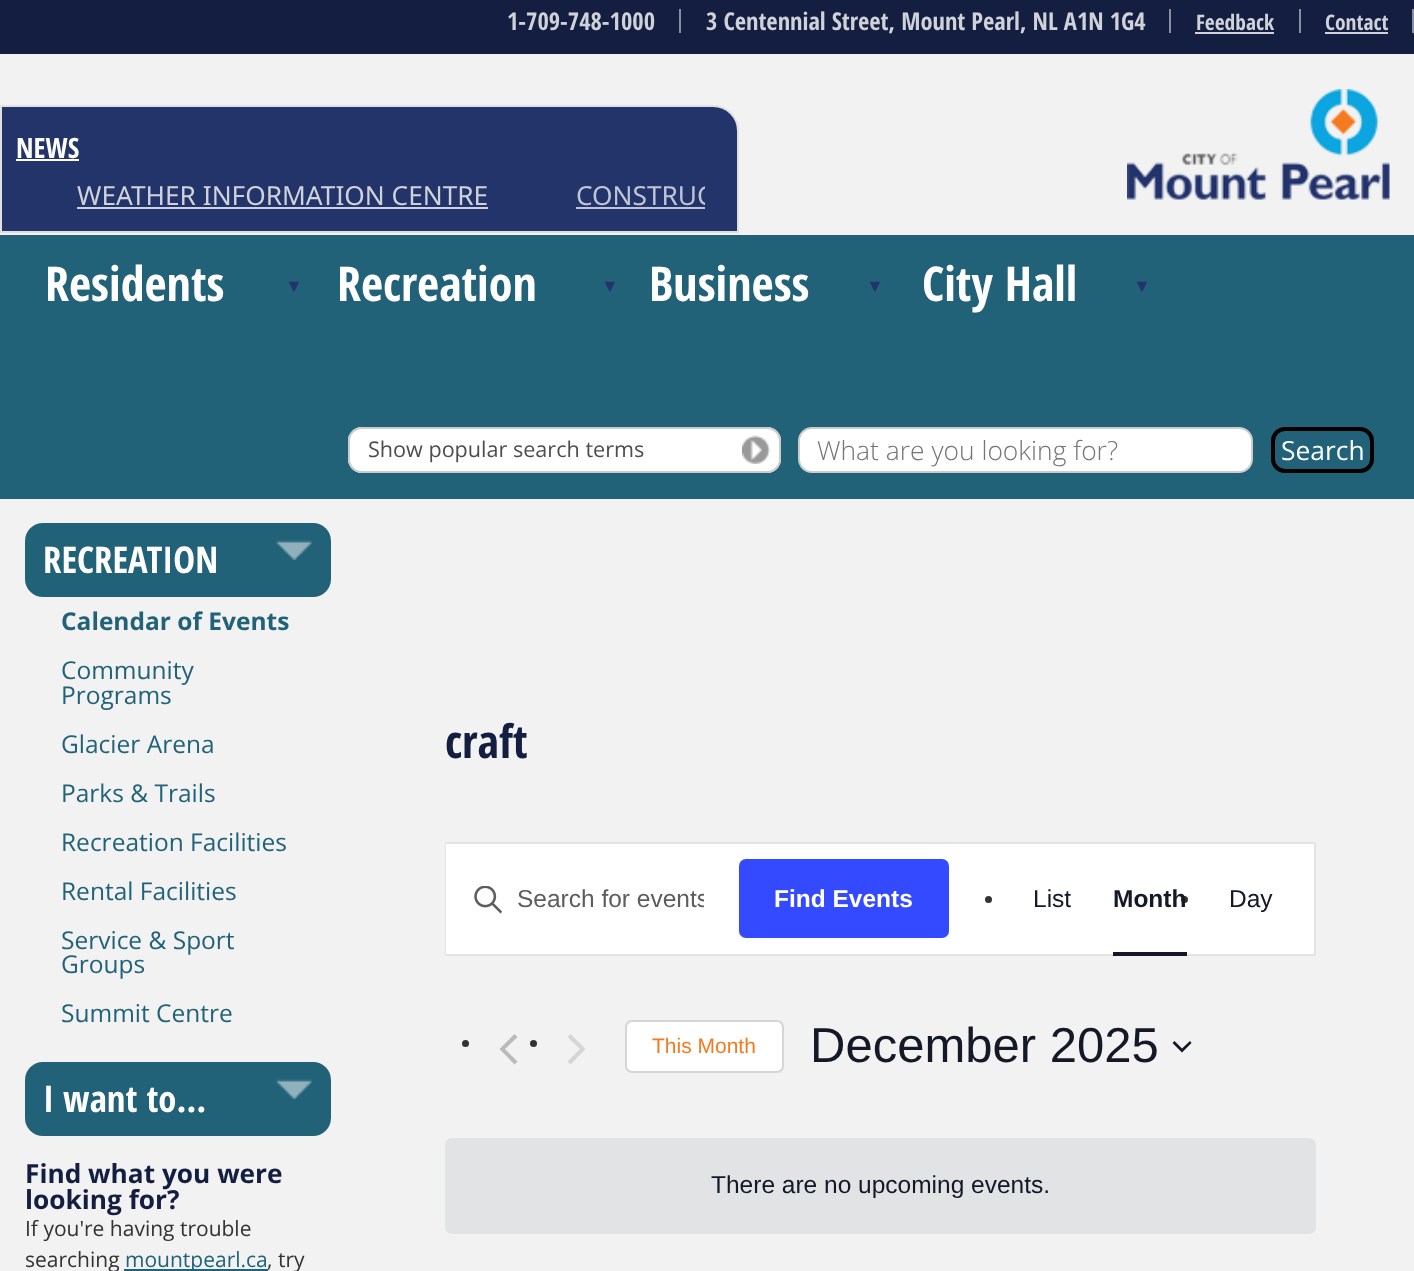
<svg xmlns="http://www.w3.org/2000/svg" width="1414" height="1271">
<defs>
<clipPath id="clip1"><rect x="576" y="179" width="129" height="35"/></clipPath>
<clipPath id="clip2"><rect x="516" y="884" width="188" height="28"/></clipPath>
</defs>
<rect width="100%" height="100%" fill="#141e40"/>
<rect x="679" y="9" width="2" height="24" fill="#8a8fa0"/>
<text x="507" y="30" style="font-family:Open Sans Condensed;font-size:24.5px;font-weight:bold;fill:#d0d2d9">1-709-748-1000</text>
<rect x="1169" y="9" width="2" height="24" fill="#8a8fa0"/>
<text x="706" y="30" style="font-family:Open Sans Condensed;font-size:24.5px;font-weight:bold;fill:#d0d2d9">3 Centennial Street, Mount Pearl, NL A1N 1G4</text>
<rect x="1299" y="9" width="2" height="24" fill="#8a8fa0"/>
<text x="1196" y="30" style="font-family:Open Sans Condensed;font-size:21.5px;font-weight:bold;fill:#d0d2d9">Feedback</text>
<rect x="1195" y="32" width="79" height="2" fill="#d0d2d9"/>
<rect x="1412" y="9" width="2" height="24" fill="#8a8fa0"/>
<text x="1325" y="30" style="font-family:Open Sans Condensed;font-size:21.5px;font-weight:bold;fill:#d0d2d9">Contact</text>
<rect x="1325" y="32" width="63" height="2" fill="#d0d2d9"/>
<rect y="54" width="1414" height="181" fill="#f2f2f2"/>
<image x="1127" y="89" width="263" height="111" href="media/1.png"/>
<path d="M1 106h712c14 0 25 11 25 25v101h-737z" fill="#23346b" stroke="#e0e0e0" stroke-width="2"/>
<text x="16" y="158" style="font-family:Open Sans Condensed;font-size:28px;font-weight:bold;fill:#fff">NEWS</text>
<rect x="16" y="159" width="63" height="2" fill="#fff"/>
<text x="77" y="205" style="font-family:Noto Sans;font-size:26.25px;fill:#d0d2d9">WEATHER INFORMATION CENTRE</text>
<rect x="77" y="207" width="411" height="2" fill="#ced2de"/>
<g clip-path="url(#clip1)">
<text x="576" y="205" style="font-family:Noto Sans;font-size:26.25px;fill:#c0c5d5">CONSTRUC</text>
</g>
<rect x="576" y="207" width="129" height="2" fill="#c0c5d5"/>
<rect y="235" width="1414" height="264" fill="#216279"/>
<text x="45" y="301" style="font-family:Open Sans Condensed;font-size:48px;font-weight:bold;fill:#fff">Residents</text>
<text x="285" y="292" style="font-family:Liberation Sans;font-size:18px;font-weight:bold;fill:#23346b">▼</text>
<text x="337" y="301" style="font-family:Open Sans Condensed;font-size:48px;font-weight:bold;fill:#fff">Recreation</text>
<text x="601" y="292" style="font-family:Liberation Sans;font-size:18px;font-weight:bold;fill:#23346b">▼</text>
<text x="649" y="301" style="font-family:Open Sans Condensed;font-size:48px;font-weight:bold;fill:#fff">Business</text>
<text x="866" y="292" style="font-family:Liberation Sans;font-size:18px;font-weight:bold;fill:#23346b">▼</text>
<text x="922" y="301" style="font-family:Open Sans Condensed;font-size:48px;font-weight:bold;fill:#fff">City Hall</text>
<text x="1133" y="292" style="font-family:Liberation Sans;font-size:18px;font-weight:bold;fill:#23346b">▼</text>
<rect x="348" y="427" width="433" height="46" rx="14" fill="#fff"/>
<image x="742" y="435" width="29" height="29" href="media/2.png"/>
<rect x="349" y="428" width="431" height="44" rx="13" fill="none" stroke="#ccc" stroke-width="2"/>
<text x="368" y="457" style="font-family:Open Sans;font-size:21.6px;fill:#4d4d4d">Show popular search terms</text>
<rect x="799" y="428" width="453" height="44" rx="13" fill="#fff" stroke="#ccc" stroke-width="2"/>
<text x="817" y="460" style="font-family:Open Sans;font-size:26.4px;font-weight:300;fill:#757575">What are you looking for?</text>
<rect x="1273" y="429" width="99" height="42" rx="12" fill="none" stroke="#000" stroke-width="4"/>
<text x="1281" y="460" style="font-family:Open Sans;font-size:26.4px;fill:#fff">Search</text>
<rect y="499" width="1414" height="772" fill="#f2f2f2"/>
<rect x="25" y="523" width="306" height="74" rx="18" fill="#216279"/>
<image x="276" y="540" width="37" height="20" href="media/3.png"/>
<text x="43" y="573" style="font-family:Open Sans Condensed;font-size:36.75px;font-weight:bold;fill:#fff">RECREATION</text>
<text x="61" y="630" style="font-family:Open Sans;font-size:24.5px;font-weight:bold;fill:#216279">Calendar of Events</text>
<text x="61" y="679" style="font-family:Open Sans;font-size:24.5px;fill:#216279">Community</text>
<text x="61" y="704" style="font-family:Open Sans;font-size:24.5px;fill:#216279">Programs</text>
<text x="61" y="753" style="font-family:Open Sans;font-size:24.5px;fill:#216279">Glacier Arena</text>
<text x="61" y="802" style="font-family:Open Sans;font-size:24.5px;fill:#216279">Parks &amp; Trails</text>
<text x="61" y="851" style="font-family:Open Sans;font-size:24.5px;fill:#216279">Recreation Facilities</text>
<text x="61" y="900" style="font-family:Open Sans;font-size:24.5px;fill:#216279">Rental Facilities</text>
<text x="61" y="949" style="font-family:Open Sans;font-size:24.5px;fill:#216279">Service &amp; Sport</text>
<text x="61" y="973" style="font-family:Open Sans;font-size:24.5px;fill:#216279">Groups</text>
<text x="61" y="1022" style="font-family:Open Sans;font-size:24.5px;fill:#216279">Summit Centre</text>
<rect x="25" y="1062" width="306" height="74" rx="18" fill="#216279"/>
<image x="276" y="1079" width="37" height="20" href="media/3.png"/>
<text x="43" y="1112" style="font-family:Open Sans Condensed;font-size:36.75px;font-weight:bold;fill:#fff">I want to…</text>
<text x="25" y="1183" style="font-family:Open Sans;font-size:26.25px;font-weight:bold;fill:#141e40">Find what you were</text>
<text x="25" y="1209" style="font-family:Open Sans;font-size:26.25px;font-weight:bold;fill:#141e40">looking for?</text>
<text x="25" y="1236" style="font-family:Open Sans;font-size:21px;fill:#333">If you're having trouble</text>
<text x="25" y="1267" style="font-family:Open Sans;font-size:21px;fill:#333">searching</text>
<rect x="124" y="1269" width="144" height="2" fill="#216279"/>
<text x="125" y="1267" style="font-family:Open Sans;font-size:21px;fill:#216279">mountpearl.ca</text>
<text x="267" y="1267" style="font-family:Open Sans;font-size:21px;fill:#333">, try</text>
<text x="445" y="758" style="font-family:Open Sans Condensed;font-size:46px;font-weight:bold;fill:#141e40">craft</text>
<rect x="949" y="844" width="365" height="110" fill="#fff"/>
<rect x="446" y="843" width="869" height="112" fill="none" stroke="#e4e4e4" stroke-width="2"/>
<rect x="446" y="844" width="503" height="110" fill="#fff"/>
<image x="474" y="886" width="28" height="28" href="media/4.png"/>
<g clip-path="url(#clip2)">
<text x="517" y="907" style="font-family:Liberation Sans;font-size:24.5px;fill:#5d5d5d">Search for events</text>
</g>
<rect x="739" y="859" width="210" height="79" rx="7" fill="#334aff"/>
<text x="774" y="907" style="font-family:Liberation Sans;font-size:24.5px;font-weight:bold;fill:#fff">Find Events</text>
<circle cx="988.5" cy="899.5" r="3.5" fill="#333"/>
<text x="1033" y="907" style="font-family:Liberation Sans;font-size:24.5px;fill:#141827">List</text>
<circle cx="1184.5" cy="899.5" r="3.5" fill="#333"/>
<text x="1113" y="907" style="font-family:Liberation Sans;font-size:24.5px;font-weight:bold;fill:#141827">Month</text>
<rect x="1113" y="952" width="74" height="4" fill="#141827"/>
<text x="1229" y="907" style="font-family:Liberation Sans;font-size:24.5px;fill:#141827">Day</text>
<circle cx="465.5" cy="1043.5" r="3.5" fill="#333"/>
<path d="M517.5 1061.5l-3 3l-15-15.5l15-15l3 3l-12.5 12z" fill="#bababa"/>
<circle cx="533.5" cy="1043.5" r="3.5" fill="#333"/>
<path d="M567.5 1037l3-3l15 15l-15 15.5l-3-3l12.5-12.5z" fill="#d5d5d5"/>
<rect x="626" y="1021" width="157" height="51" rx="6" fill="#fff" stroke="#d5d5d5" stroke-width="2"/>
<text x="652" y="1053" style="font-family:Liberation Sans;font-size:21px;fill:#f47a20">This Month</text>
<text x="810" y="1062" style="font-family:Liberation Sans;font-size:49px;fill:#141827">December 2025</text>
<path d="M1174.5 1041l7.5 7.5l8-7.5l1.5 2l-9.5 9.5l-9.5-9.5z" fill="#141827" fill-rule="evenodd"/>
<rect x="445" y="1138" width="871" height="96" rx="7" fill="#e2e3e4"/>
<text x="711" y="1193" style="font-family:Liberation Sans;font-size:24.5px;fill:#141827">There are no upcoming events.</text>
</svg>
